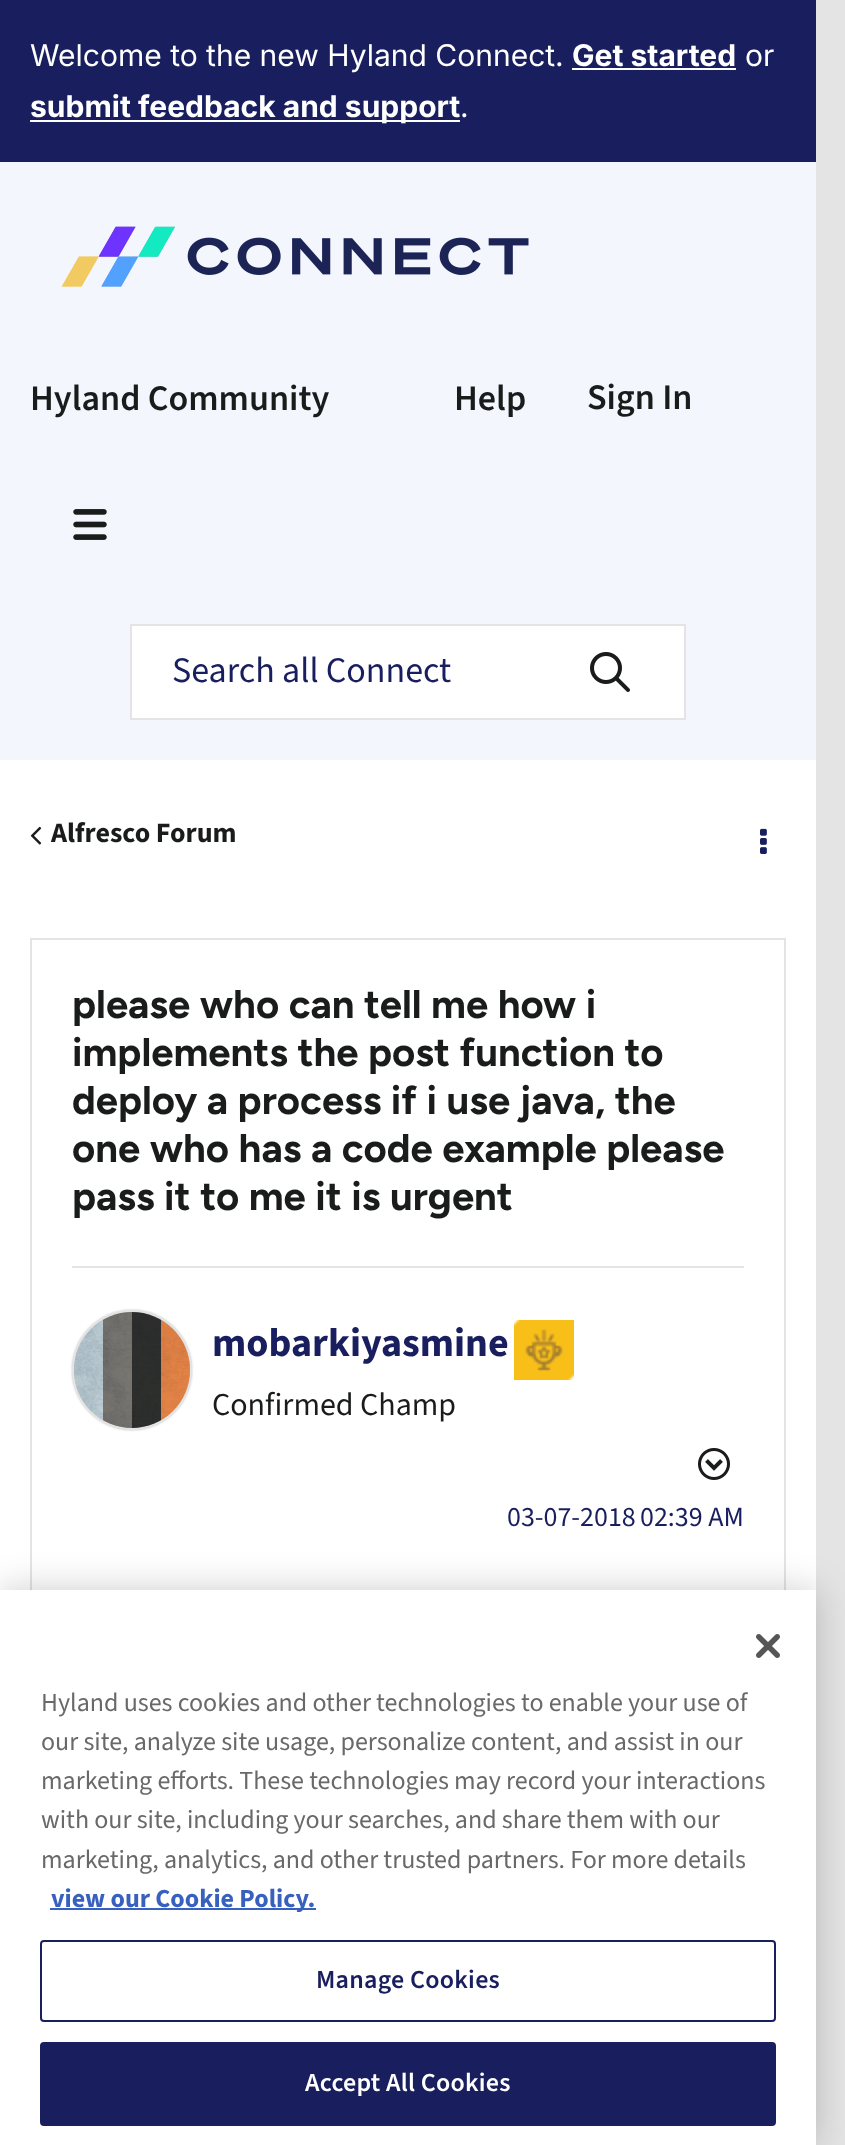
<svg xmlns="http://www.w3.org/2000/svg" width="845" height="2145">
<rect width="100%" height="100%" fill="#e4e4e4"/>
<rect y="760" width="816" height="830" fill="#fff"/>
<rect width="816" height="162" fill="#191f5e"/>
<text x="30" y="66" style="font-family:Inter;font-size:30px;fill:#fff">Welcome to the new Hyland Connect.</text>
<text x="572" y="66" style="font-family:Inter;font-size:30px;font-weight:bold;fill:#fff">Get started</text>
<rect x="572" y="68" width="164" height="2" fill="#fff"/>
<text x="745" y="66" style="font-family:Inter;font-size:30px;fill:#fff">or</text>
<rect x="30" y="120" width="430" height="2" fill="#fff"/>
<text x="30" y="117" style="font-family:Inter;font-size:30px;font-weight:bold;fill:#fff">submit feedback and support</text>
<text x="460" y="117" style="font-family:Inter;font-size:30px;fill:#fff">.</text>
<rect y="162" width="816" height="598" fill="#f4f6fe"/>
<image x="61" y="226" width="468" height="61" href="media/1.png"/>
<text x="30" y="410" style="font-family:'Source Sans 3';font-size:36px;font-weight:600;fill:#191c1a">Hyland Community</text>
<text x="454" y="410" style="font-family:'Source Sans 3';font-size:36px;font-weight:600;fill:#191c1a">Help</text>
<text x="587" y="409" style="font-family:'Source Sans 3';font-size:36px;font-weight:600;fill:#191c1a">Sign In</text>
<image x="73" y="509" width="34" height="31" href="media/2.png"/>
<rect x="131" y="625" width="554" height="94" fill="#fff" stroke="#e4e4e4" stroke-width="2"/>
<text x="172" y="682" style="font-family:'Source Sans 3';font-size:36px;fill:#191f5e">Search all Connect</text>
<image x="590" y="652" width="40" height="40" href="media/3.png"/>
<image x="30" y="826" width="12" height="19" href="media/4.png"/>
<text x="51" y="842" style="font-family:'Source Sans 3';font-size:28px;font-weight:bold;fill:#191c1a">Alfresco Forum</text>
<image x="760" y="828" width="7" height="26" href="media/5.png"/>
<rect x="31" y="939" width="754" height="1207" fill="none" stroke="#e4e4e4" stroke-width="2"/>
<rect x="72" y="1266" width="672" height="2" fill="#e4e4e4"/>
<text x="72" y="1018" style="font-family:Figtree;font-size:40px;font-weight:bold;fill:#191c1a">please who can tell me how i</text>
<text x="72" y="1066" style="font-family:Figtree;font-size:40px;font-weight:bold;fill:#191c1a">implements the post function to</text>
<text x="72" y="1114" style="font-family:Figtree;font-size:40px;font-weight:bold;fill:#191c1a">deploy a process if i use java, the</text>
<text x="72" y="1162" style="font-family:Figtree;font-size:40px;font-weight:bold;fill:#191c1a">one who has a code example please</text>
<text x="72" y="1210" style="font-family:Figtree;font-size:40px;font-weight:bold;fill:#191c1a">pass it to me it is urgent</text>
<rect x="72" y="1310" width="120" height="120" rx="60" fill="#c4c4c4" filter="blur(1px)"/>
<circle cx="132" cy="1370" r="59" fill="none" stroke="#e4e4e4" stroke-width="2"/>
<image x="74" y="1312" width="116" height="116" href="media/6.png"/>
<text x="212" y="1356" style="font-family:'Source Sans 3';font-size:40px;font-weight:bold;fill:#191f5e">mobarkiyasmine</text>
<image x="514" y="1320" width="60" height="60" href="media/7.png"/>
<text x="212" y="1415" style="font-family:'Source Sans 3';font-size:32px;fill:#191c1a">Confirmed Champ</text>
<image x="698" y="1448" width="32" height="32" href="media/8.png"/>
<text x="507" y="1526" style="font-family:'Source Sans 3';font-size:28px;fill:#191f5e">03-07-2018</text>
<text x="640" y="1526" style="font-family:'Source Sans 3';font-size:28px;fill:#191f5e">02:39 AM</text>
<rect y="1590" width="816" height="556" fill="#00000033" filter="blur(18px)"/>
<rect y="1590" width="816" height="555" fill="#fff"/>
<image x="756" y="1634" width="24" height="24" href="media/9.png"/>
<text x="41" y="1711" style="font-family:'Source Sans 3';font-size:26px;fill:#696969">Hyland uses cookies and other technologies to enable your use of</text>
<text x="41" y="1750" style="font-family:'Source Sans 3';font-size:26px;fill:#696969">our site, analyze site usage, personalize content, and assist in our</text>
<text x="41" y="1789" style="font-family:'Source Sans 3';font-size:26px;fill:#696969">marketing efforts. These technologies may record your interactions</text>
<text x="41" y="1828" style="font-family:'Source Sans 3';font-size:26px;fill:#696969">with our site, including your searches, and share them with our</text>
<text x="41" y="1868" style="font-family:'Source Sans 3';font-size:26px;fill:#696969">marketing, analytics, and other trusted partners. For more details</text>
<rect x="50" y="1908" width="266" height="2" fill="#3860be"/>
<text x="51" y="1907" style="font-family:'Source Sans 3';font-size:26px;font-weight:bold;fill:#3860be">view our Cookie Policy.</text>
<rect x="41" y="1941" width="734" height="80" rx="3" fill="none" stroke="#191f5e" stroke-width="2"/>
<text x="316" y="1988" style="font-family:'Source Sans 3';font-size:26px;font-weight:600;letter-spacing:0.25px;fill:#191f5e">Manage Cookies</text>
<rect x="41" y="2043" width="734" height="82" rx="3" fill="#191f5e" stroke="#191f5e" stroke-width="2"/>
<text x="305" y="2091" style="font-family:'Source Sans 3';font-size:26px;font-weight:600;letter-spacing:0.25px;fill:#fff">Accept All Cookies</text>
</svg>
